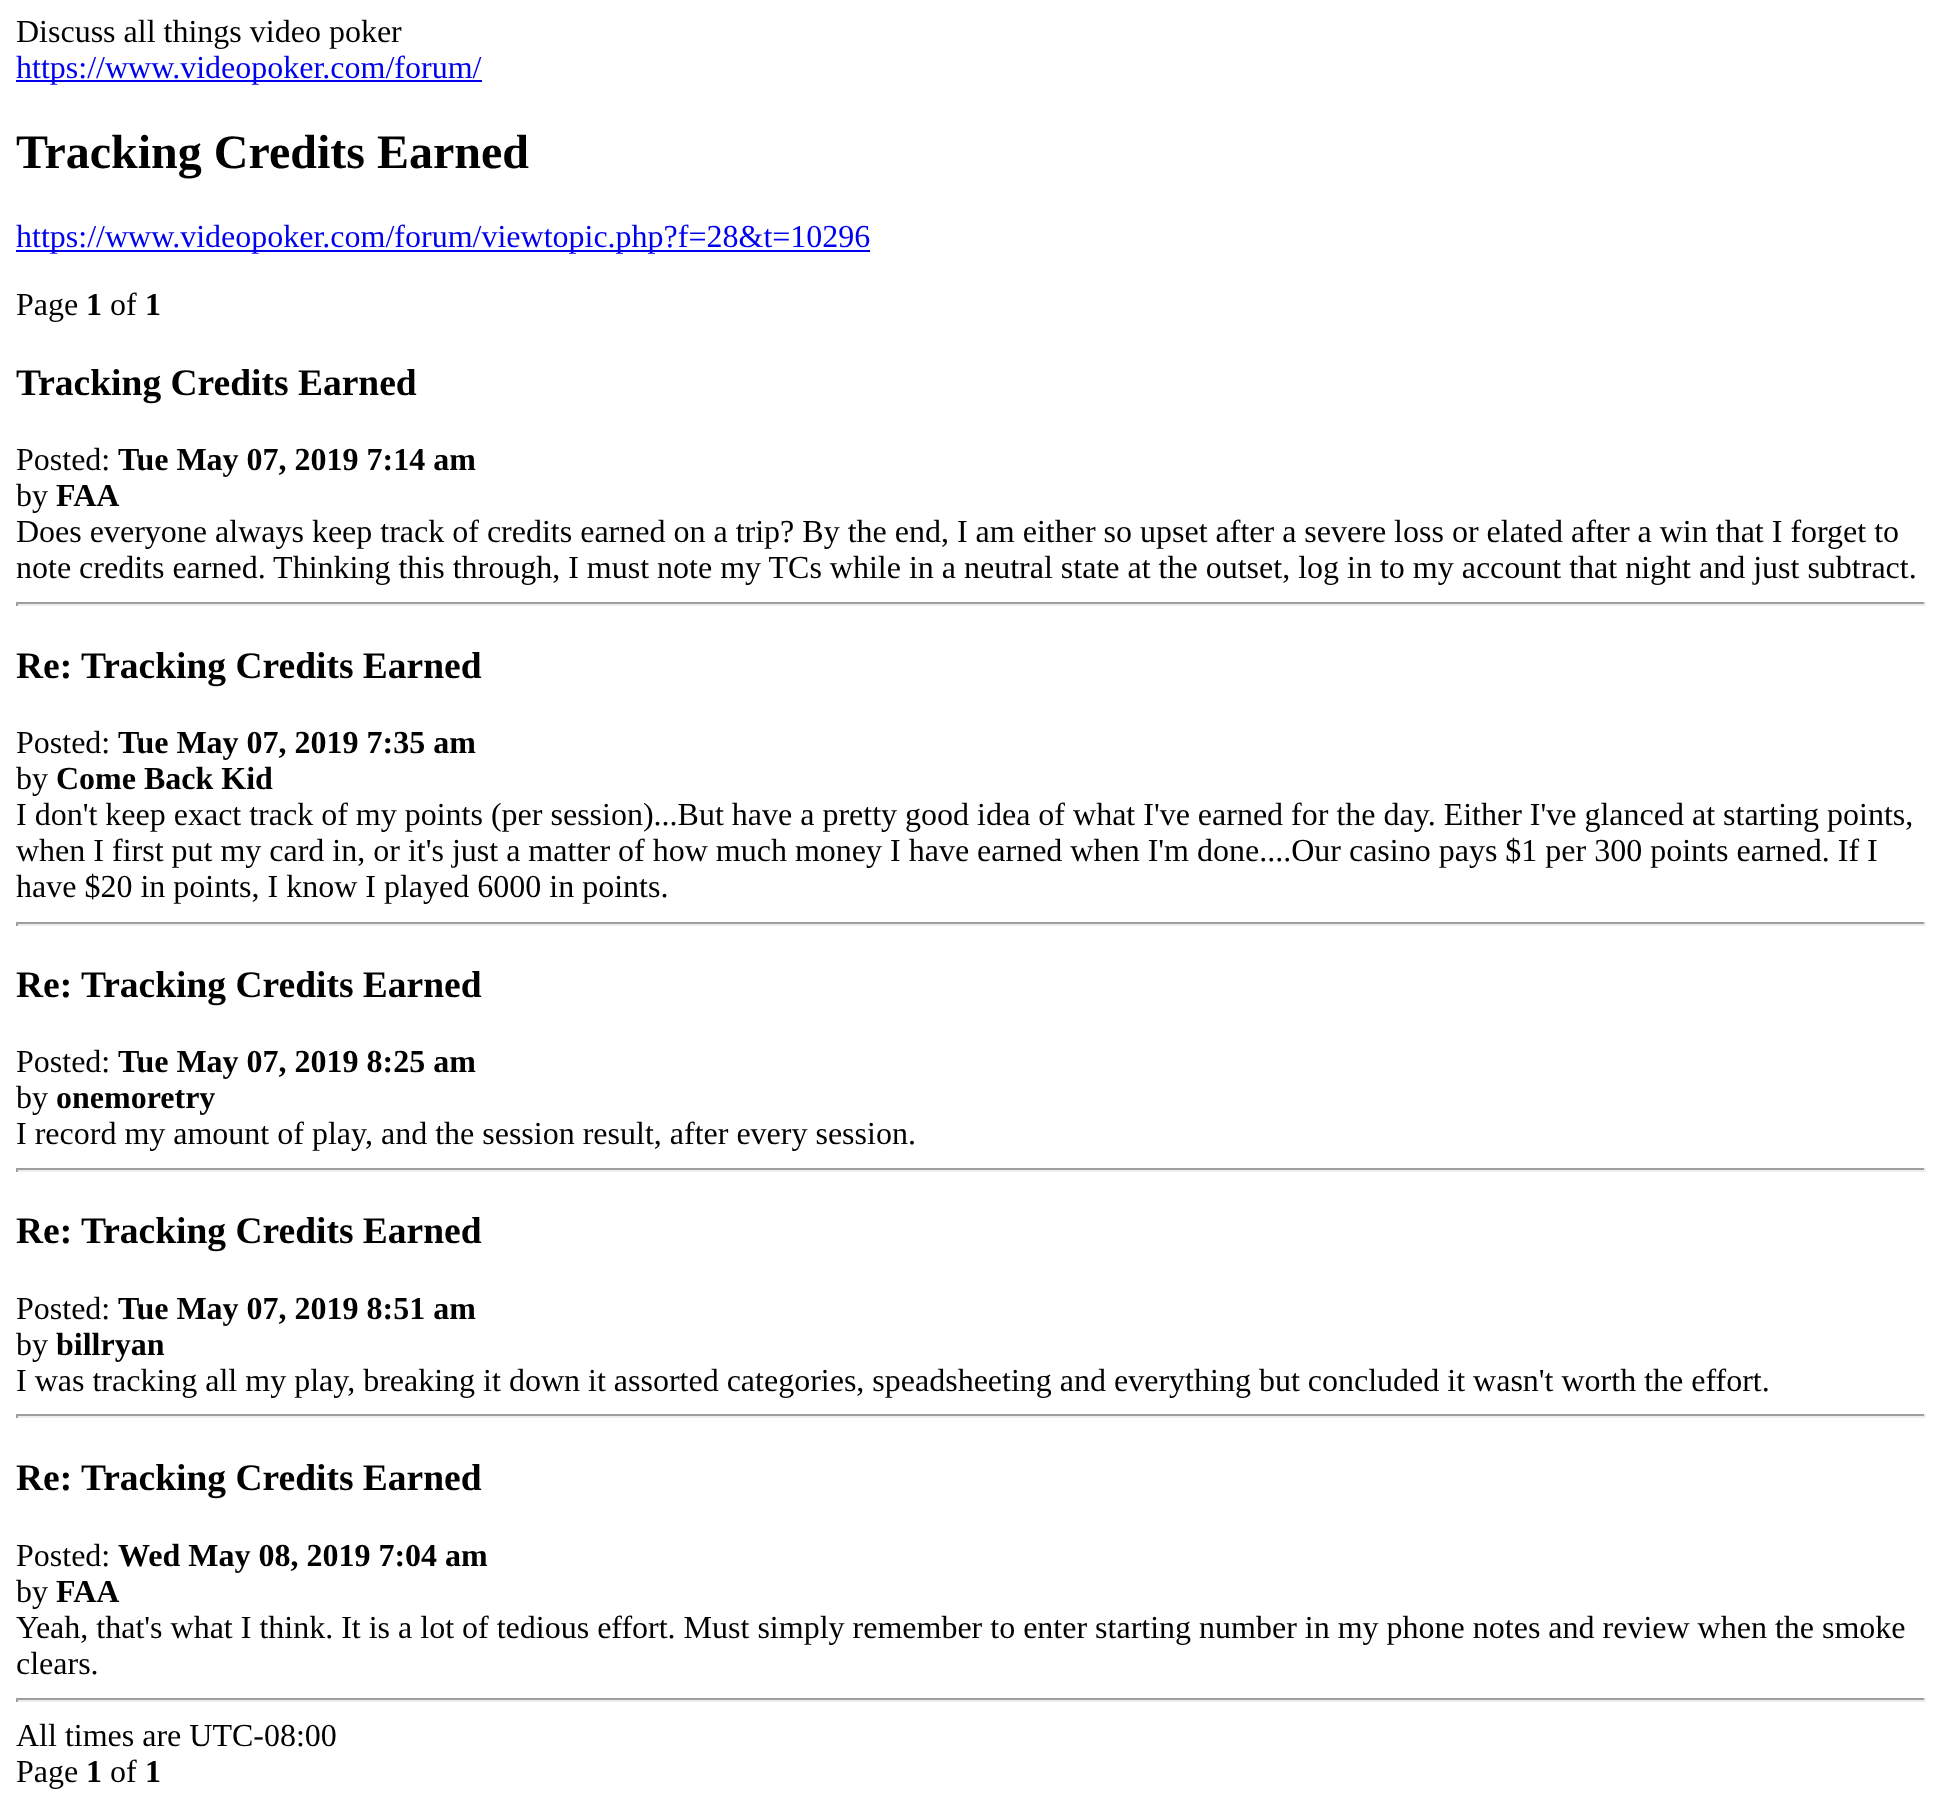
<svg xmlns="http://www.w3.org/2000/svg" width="1942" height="1806">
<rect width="100%" height="100%" fill="#fff"/>
<text x="16" y="42" style="font-family:Liberation Serif;font-size:32px;fill:#000">Discuss all things video poker</text>
<rect x="16" y="80" width="466" height="2" fill="#00e"/>
<text x="16" y="78" style="font-family:Liberation Serif;font-size:32px;fill:#00e">https://www.videopoker.com/forum/</text>
<text x="16" y="168" style="font-family:Liberation Serif;font-size:48px;font-weight:bold;fill:#000">Tracking Credits Earned</text>
<rect x="16" y="250" width="854" height="2" fill="#00e"/>
<text x="16" y="247" style="font-family:Liberation Serif;font-size:32px;fill:#00e">https://www.videopoker.com/forum/viewtopic.php?f=28&amp;t=10296</text>
<text x="16" y="315" style="font-family:Liberation Serif;font-size:32px;fill:#000">Page</text>
<text x="86" y="315" style="font-family:Liberation Serif;font-size:32px;font-weight:bold;fill:#000">1</text>
<text x="110" y="315" style="font-family:Liberation Serif;font-size:32px;fill:#000">of</text>
<text x="145" y="315" style="font-family:Liberation Serif;font-size:32px;font-weight:bold;fill:#000">1</text>
<text x="16" y="395" style="font-family:Liberation Serif;font-size:37.5px;font-weight:bold;fill:#000">Tracking Credits Earned</text>
<text x="16" y="470" style="font-family:Liberation Serif;font-size:32px;fill:#000">Posted:</text>
<text x="118" y="470" style="font-family:Liberation Serif;font-size:32px;font-weight:bold;fill:#000">Tue May 07, 2019 7:14 am</text>
<text x="16" y="506" style="font-family:Liberation Serif;font-size:32px;fill:#000">by</text>
<text x="56" y="506" style="font-family:Liberation Serif;font-size:32px;font-weight:bold;fill:#000">FAA</text>
<text x="16" y="542" style="font-family:Liberation Serif;font-size:32px;fill:#000">Does everyone always keep track of credits earned on a trip? By the end, I am either so upset after a severe loss or elated after a win that I forget to</text>
<text x="16" y="578" style="font-family:Liberation Serif;font-size:32px;fill:#000">note credits earned. Thinking this through, I must note my TCs while in a neutral state at the outset, log in to my account that night and just subtract.</text>
<rect x="16" y="602" width="1910" height="2" fill="#9f9f9f"/>
<rect x="1924" y="602" width="2" height="4" fill="#eee"/>
<rect x="16" y="604" width="1910" height="2" fill="#eee"/>
<rect x="16" y="602" width="2" height="4" fill="#9f9f9f"/>
<text x="16" y="678" style="font-family:Liberation Serif;font-size:37.5px;font-weight:bold;fill:#000">Re: Tracking Credits Earned</text>
<text x="16" y="753" style="font-family:Liberation Serif;font-size:32px;fill:#000">Posted:</text>
<text x="118" y="753" style="font-family:Liberation Serif;font-size:32px;font-weight:bold;fill:#000">Tue May 07, 2019 7:35 am</text>
<text x="16" y="789" style="font-family:Liberation Serif;font-size:32px;fill:#000">by</text>
<text x="56" y="789" style="font-family:Liberation Serif;font-size:32px;font-weight:bold;fill:#000">Come Back Kid</text>
<text x="16" y="825" style="font-family:Liberation Serif;font-size:32px;fill:#000">I don't keep exact track of my points (per session)...But have a pretty good idea of what I've earned for the day. Either I've glanced at starting points,</text>
<text x="16" y="861" style="font-family:Liberation Serif;font-size:32px;fill:#000">when I first put my card in, or it's just a matter of how much money I have earned when I'm done....Our casino pays $1 per 300 points earned. If I</text>
<text x="16" y="897" style="font-family:Liberation Serif;font-size:32px;fill:#000">have $20 in points, I know I played 6000 in points.</text>
<rect x="16" y="922" width="1910" height="2" fill="#9f9f9f"/>
<rect x="1924" y="922" width="2" height="4" fill="#eee"/>
<rect x="16" y="924" width="1910" height="2" fill="#eee"/>
<rect x="16" y="922" width="2" height="4" fill="#9f9f9f"/>
<text x="16" y="997" style="font-family:Liberation Serif;font-size:37.5px;font-weight:bold;fill:#000">Re: Tracking Credits Earned</text>
<text x="16" y="1072" style="font-family:Liberation Serif;font-size:32px;fill:#000">Posted:</text>
<text x="118" y="1072" style="font-family:Liberation Serif;font-size:32px;font-weight:bold;fill:#000">Tue May 07, 2019 8:25 am</text>
<text x="16" y="1108" style="font-family:Liberation Serif;font-size:32px;fill:#000">by</text>
<text x="56" y="1108" style="font-family:Liberation Serif;font-size:32px;font-weight:bold;fill:#000">onemoretry</text>
<text x="16" y="1144" style="font-family:Liberation Serif;font-size:32px;fill:#000">I record my amount of play, and the session result, after every session.</text>
<rect x="16" y="1168" width="1910" height="2" fill="#9f9f9f"/>
<rect x="1924" y="1168" width="2" height="4" fill="#eee"/>
<rect x="16" y="1170" width="1910" height="2" fill="#eee"/>
<rect x="16" y="1168" width="2" height="4" fill="#9f9f9f"/>
<text x="16" y="1243" style="font-family:Liberation Serif;font-size:37.5px;font-weight:bold;fill:#000">Re: Tracking Credits Earned</text>
<text x="16" y="1319" style="font-family:Liberation Serif;font-size:32px;fill:#000">Posted:</text>
<text x="118" y="1319" style="font-family:Liberation Serif;font-size:32px;font-weight:bold;fill:#000">Tue May 07, 2019 8:51 am</text>
<text x="16" y="1355" style="font-family:Liberation Serif;font-size:32px;fill:#000">by</text>
<text x="56" y="1355" style="font-family:Liberation Serif;font-size:32px;font-weight:bold;fill:#000">billryan</text>
<text x="16" y="1391" style="font-family:Liberation Serif;font-size:32px;fill:#000">I was tracking all my play, breaking it down it assorted categories, speadsheeting and everything but concluded it wasn't worth the effort.</text>
<rect x="16" y="1414" width="1910" height="2" fill="#9f9f9f"/>
<rect x="1924" y="1414" width="2" height="4" fill="#eee"/>
<rect x="16" y="1416" width="1910" height="2" fill="#eee"/>
<rect x="16" y="1414" width="2" height="4" fill="#9f9f9f"/>
<text x="16" y="1490" style="font-family:Liberation Serif;font-size:37.5px;font-weight:bold;fill:#000">Re: Tracking Credits Earned</text>
<text x="16" y="1566" style="font-family:Liberation Serif;font-size:32px;fill:#000">Posted:</text>
<text x="118" y="1566" style="font-family:Liberation Serif;font-size:32px;font-weight:bold;fill:#000">Wed May 08, 2019 7:04 am</text>
<text x="16" y="1602" style="font-family:Liberation Serif;font-size:32px;fill:#000">by</text>
<text x="56" y="1602" style="font-family:Liberation Serif;font-size:32px;font-weight:bold;fill:#000">FAA</text>
<text x="16" y="1638" style="font-family:Liberation Serif;font-size:32px;fill:#000">Yeah, that's what I think. It is a lot of tedious effort. Must simply remember to enter starting number in my phone notes and review when the smoke</text>
<text x="16" y="1674" style="font-family:Liberation Serif;font-size:32px;fill:#000">clears.</text>
<rect x="16" y="1698" width="1910" height="2" fill="#9f9f9f"/>
<rect x="1924" y="1698" width="2" height="4" fill="#eee"/>
<rect x="16" y="1700" width="1910" height="2" fill="#eee"/>
<rect x="16" y="1698" width="2" height="4" fill="#9f9f9f"/>
<text x="16" y="1746" style="font-family:Liberation Serif;font-size:32px;fill:#000">All times are UTC-08:00</text>
<text x="16" y="1782" style="font-family:Liberation Serif;font-size:32px;fill:#000">Page</text>
<text x="86" y="1782" style="font-family:Liberation Serif;font-size:32px;font-weight:bold;fill:#000">1</text>
<text x="110" y="1782" style="font-family:Liberation Serif;font-size:32px;fill:#000">of</text>
<text x="145" y="1782" style="font-family:Liberation Serif;font-size:32px;font-weight:bold;fill:#000">1</text>
</svg>
